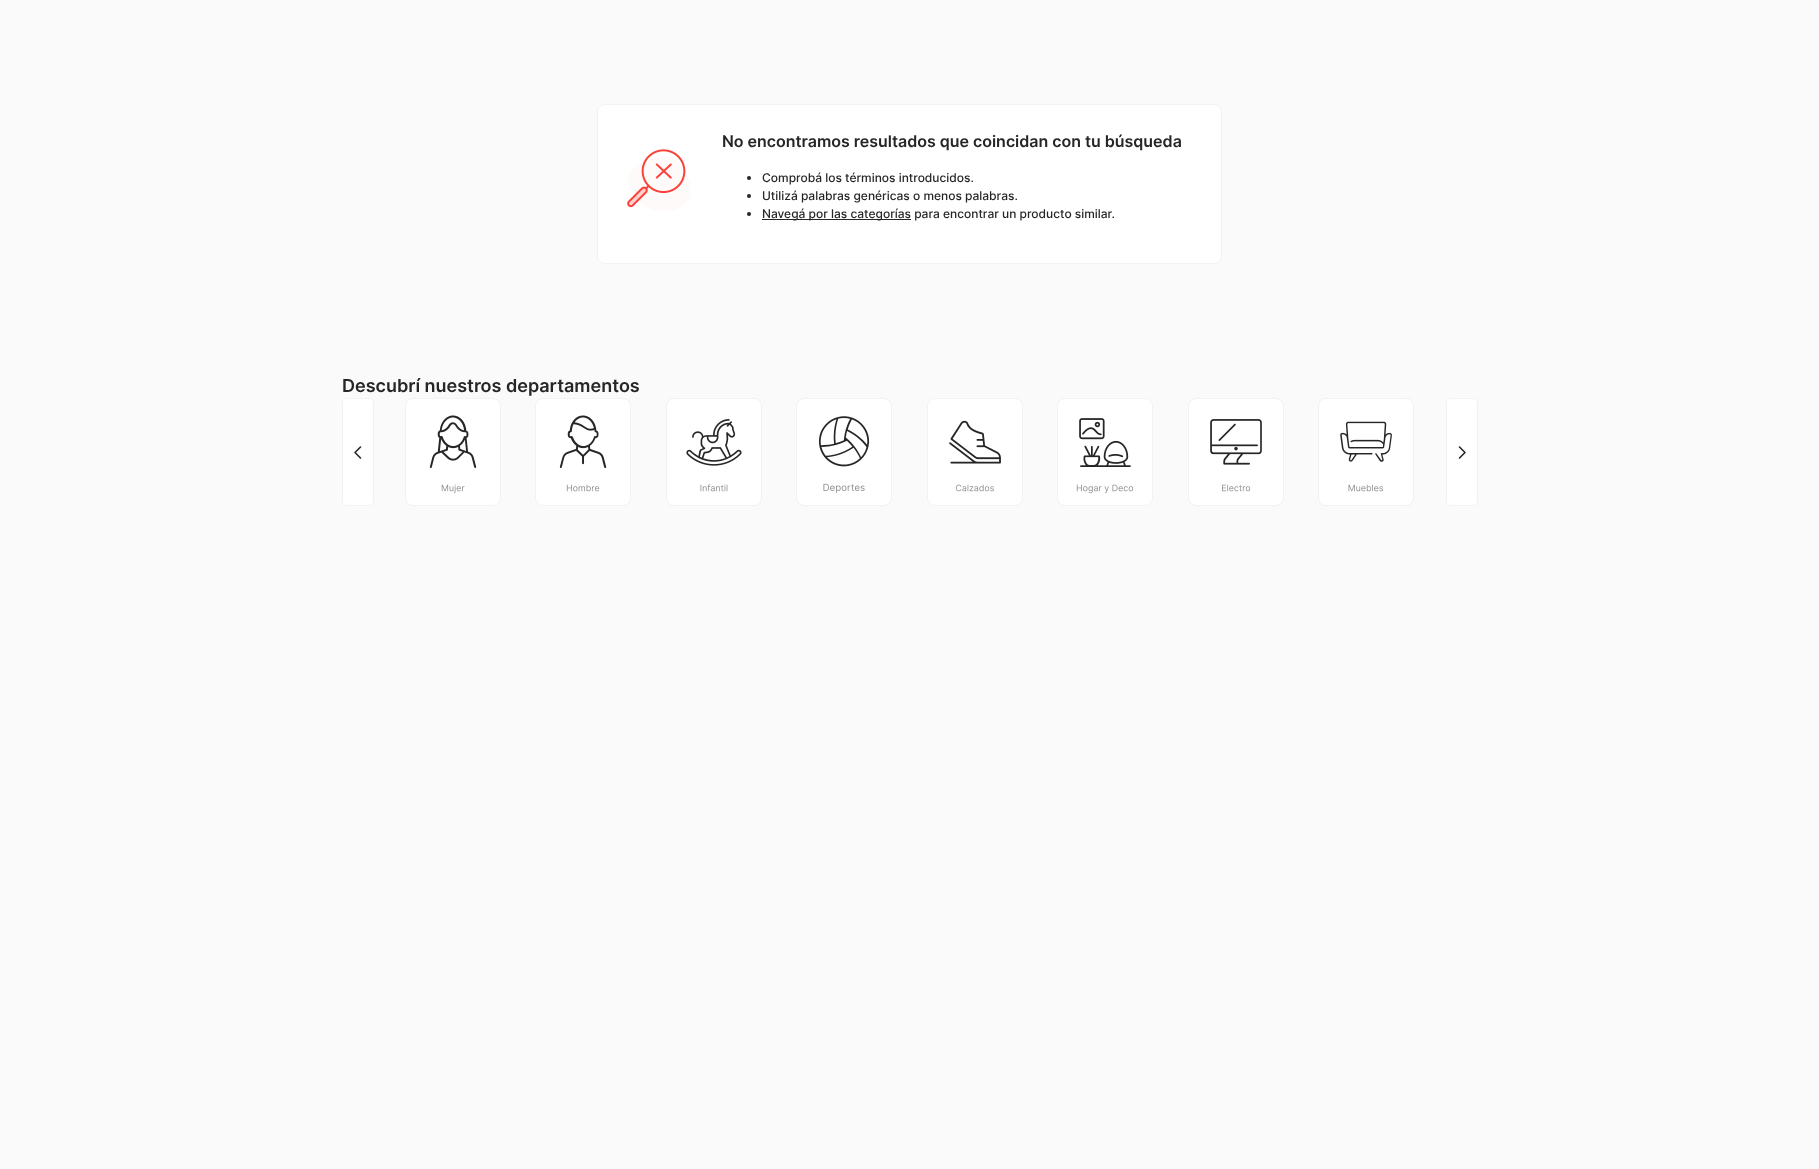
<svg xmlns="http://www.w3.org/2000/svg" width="1819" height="1169">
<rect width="100%" height="100%" fill="#fafafa"/>
<rect x="597.5" y="104.5" width="624" height="159" rx="7.5" fill="#fff" stroke="#f2f2f2"/>
<image x="627" y="149" width="63" height="62" href="media/1.png"/>
<text x="722" y="147" style="font-family:Inter;font-size:16px;font-weight:600;fill:#262626">No encontramos resultados que coincidan con tu búsqueda</text>
<circle cx="749" cy="178" r="2" fill="#262626"/>
<text x="762" y="182" style="font-family:Inter;font-size:12px;font-weight:500;fill:#262626">Comprobá los términos introducidos.</text>
<circle cx="749" cy="196" r="2" fill="#262626"/>
<text x="762" y="200" style="font-family:Inter;font-size:12px;font-weight:500;fill:#262626">Utilizá palabras genéricas o menos palabras.</text>
<circle cx="749" cy="214" r="2" fill="#262626"/>
<rect x="762" y="219" width="149" height="1" fill="#262626"/>
<text x="762" y="218" style="font-family:Inter;font-size:12px;font-weight:500;fill:#262626">Navegá por las categorías para encontrar un producto similar.</text>
<text x="342" y="392" style="font-family:Inter;font-size:18px;font-weight:600;fill:#262626">Descubrí nuestros departamentos</text>
<rect x="342.5" y="398.5" width="31" height="107" rx="3.5" fill="#fff" stroke="#f2f2f2"/>
<path d="M360.5 447l-5.5 5.5l5.5 5.5" fill="none" stroke="#262626" stroke-width="1.6" stroke-linecap="round" stroke-linejoin="round"/>
<rect x="405.5" y="398.5" width="95" height="107" rx="7.5" fill="#fff" stroke="#f2f2f2"/>
<image x="429" y="415" width="48" height="78" href="media/2.png"/>
<rect x="535.5" y="398.5" width="95" height="107" rx="7.5" fill="#fff" stroke="#f2f2f2"/>
<image x="559" y="415" width="48" height="77" href="media/3.png"/>
<rect x="666.5" y="398.5" width="95" height="107" rx="7.5" fill="#fff" stroke="#f2f2f2"/>
<image x="686" y="419" width="56" height="73" href="media/4.png"/>
<rect x="796.5" y="398.5" width="95" height="107" rx="7.5" fill="#fff" stroke="#f2f2f2"/>
<image x="818" y="416" width="52" height="77" href="media/5.png"/>
<rect x="927.5" y="398.5" width="95" height="107" rx="7.5" fill="#fff" stroke="#f2f2f2"/>
<image x="949" y="420" width="52" height="72" href="media/6.png"/>
<rect x="1057.5" y="398.5" width="95" height="107" rx="7.5" fill="#fff" stroke="#f2f2f2"/>
<image x="1076" y="418" width="58" height="76" href="media/7.png"/>
<rect x="1188.5" y="398.5" width="95" height="107" rx="7.5" fill="#fff" stroke="#f2f2f2"/>
<image x="1210" y="419" width="52" height="73" href="media/8.png"/>
<rect x="1318.5" y="398.5" width="95" height="107" rx="7.5" fill="#fff" stroke="#f2f2f2"/>
<image x="1340" y="421" width="52" height="71" href="media/9.png"/>
<rect x="1446.5" y="398.5" width="31" height="107" rx="3.5" fill="#fff" stroke="#f2f2f2"/>
<path d="M1459.5 458l5.5-5.5l-5.5-5.5" fill="none" stroke="#262626" stroke-width="1.6" stroke-linecap="round" stroke-linejoin="round"/>
</svg>
